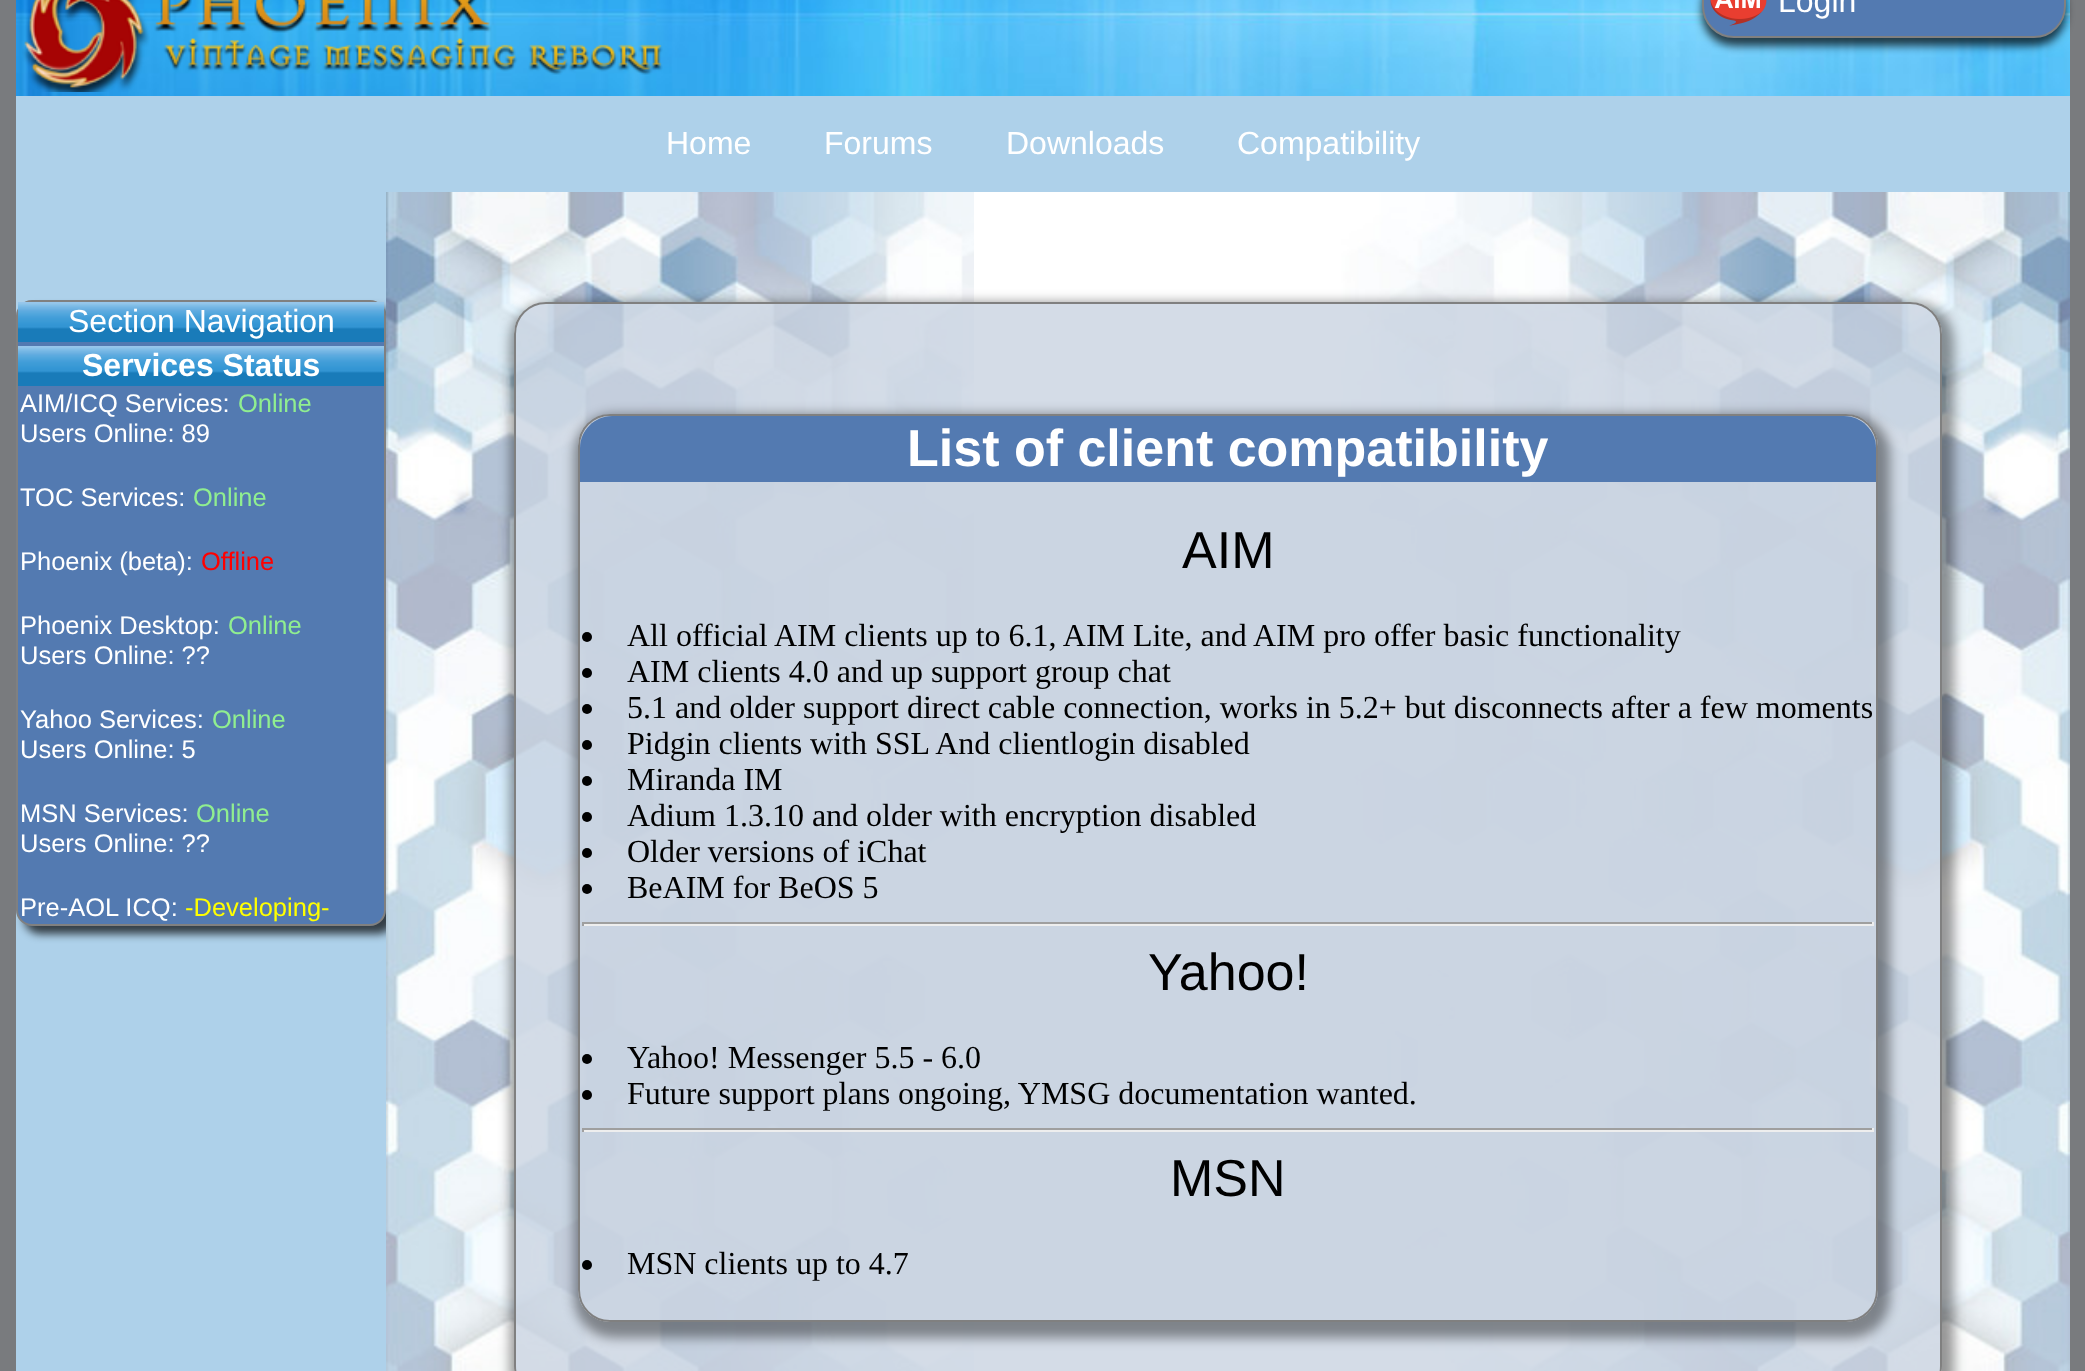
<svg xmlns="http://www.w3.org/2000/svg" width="2085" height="1371">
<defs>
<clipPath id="clip1"><rect x="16" y="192" width="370" height="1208"/></clipPath>
<clipPath id="clip2"><path d="M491 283h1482v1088h-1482zm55 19h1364c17.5 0 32 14.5 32 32v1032c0 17.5-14.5 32-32 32h-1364c-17.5 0-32-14.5-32-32v-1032c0-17.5 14.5-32 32-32z" clip-rule="evenodd"/></clipPath>
<clipPath id="clip3"><path d="M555 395h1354v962h-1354zm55 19h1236c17.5 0 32 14.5 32 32v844c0 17.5-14.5 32-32 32h-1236c-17.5 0-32-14.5-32-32v-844c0-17.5 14.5-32 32-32z" clip-rule="evenodd"/></clipPath>
</defs>
<rect width="100%" height="100%" fill="#797b7e"/>
<image x="16" y="0" width="2054" height="96" href="media/1.png"/>
<image x="22" y="0" width="641" height="92" href="media/2.png"/>
<rect x="1702" y="-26" width="364" height="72" rx="32" fill="#000000b3" filter="blur(4px)"/>
<rect x="1703" y="-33" width="362" height="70" rx="31" fill="#537ab1" stroke="#808080" stroke-width="2"/>
<image x="1710" y="0" width="57" height="26" href="media/3.png"/>
<text x="1778" y="12" style="font-family:Liberation Sans;font-size:32px;fill:#fff">Login</text>
<rect x="16" y="96" width="2054" height="96" fill="#aed1ea"/>
<text x="666" y="154" style="font-family:Liberation Sans;font-size:32px;fill:#fff">Home</text>
<text x="824" y="154" style="font-family:Liberation Sans;font-size:32px;fill:#fff">Forums</text>
<text x="1006" y="154" style="font-family:Liberation Sans;font-size:32px;fill:#fff">Downloads</text>
<text x="1237" y="154" style="font-family:Liberation Sans;font-size:32px;fill:#fff">Compatibility</text>
<rect x="16" y="192" width="370" height="1179" fill="#aed1ea"/>
<image x="386" y="192" width="1684" height="1179" href="media/5.png"/>
<g clip-path="url(#clip1)">
<rect x="24" y="308" width="370" height="626" rx="16" fill="#000000b3" filter="blur(4px)"/>
</g>
<rect x="17" y="301" width="368" height="624" rx="15" fill="#537ab1" stroke="#808080" stroke-width="2"/>
<image x="18" y="302" width="366" height="40" href="media/4.png"/>
<text x="68" y="332" style="font-family:Liberation Sans;font-size:32px;fill:#fff">Section Navigation</text>
<image x="18" y="346" width="366" height="40" href="media/4.png"/>
<text x="82" y="376" style="font-family:Liberation Sans;font-size:32px;font-weight:bold;fill:#fff">Services Status</text>
<text x="20" y="412" style="font-family:Liberation Sans;font-size:25.5px;fill:#fff">AIM/ICQ Services:</text>
<text x="238" y="412" style="font-family:Liberation Sans;font-size:25.5px;fill:#90ee90">Online</text>
<text x="20" y="442" style="font-family:Liberation Sans;font-size:25.5px;fill:#fff">Users Online: 89</text>
<text x="20" y="506" style="font-family:Liberation Sans;font-size:25.5px;fill:#fff">TOC Services:</text>
<text x="193" y="506" style="font-family:Liberation Sans;font-size:25.5px;fill:#90ee90">Online</text>
<text x="20" y="570" style="font-family:Liberation Sans;font-size:25.5px;fill:#fff">Phoenix (beta):</text>
<text x="201" y="570" style="font-family:Liberation Sans;font-size:25.5px;fill:#f00">Offline</text>
<text x="20" y="634" style="font-family:Liberation Sans;font-size:25.5px;fill:#fff">Phoenix Desktop:</text>
<text x="228" y="634" style="font-family:Liberation Sans;font-size:25.5px;fill:#90ee90">Online</text>
<text x="20" y="664" style="font-family:Liberation Sans;font-size:25.5px;fill:#fff">Users Online: ??</text>
<text x="20" y="728" style="font-family:Liberation Sans;font-size:25.5px;fill:#fff">Yahoo Services:</text>
<text x="212" y="728" style="font-family:Liberation Sans;font-size:25.5px;fill:#90ee90">Online</text>
<text x="20" y="758" style="font-family:Liberation Sans;font-size:25.5px;fill:#fff">Users Online: 5</text>
<text x="20" y="822" style="font-family:Liberation Sans;font-size:25.5px;fill:#fff">MSN Services:</text>
<text x="196" y="822" style="font-family:Liberation Sans;font-size:25.5px;fill:#90ee90">Online</text>
<text x="20" y="852" style="font-family:Liberation Sans;font-size:25.5px;fill:#fff">Users Online: ??</text>
<text x="20" y="916" style="font-family:Liberation Sans;font-size:25.5px;fill:#fff">Pre-AOL ICQ:</text>
<text x="185" y="916" style="font-family:Liberation Sans;font-size:25.5px;fill:#ff0">-Developing-</text>
<g clip-path="url(#clip2)">
<rect x="510" y="302" width="1444" height="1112" rx="40" fill="#00000066" filter="blur(6px)"/>
</g>
<rect x="515" y="303" width="1426" height="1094" rx="31" fill="#c8d3e0c9" stroke="#808080" stroke-width="2"/>
<g clip-path="url(#clip3)">
<rect x="574" y="414" width="1316" height="924" rx="40" fill="#00000066" filter="blur(6px)"/>
</g>
<rect x="579" y="415" width="1298" height="906" rx="31" fill="#c8d3e0c9" stroke="#808080" stroke-width="2"/>
<path d="M612 416h1232c17.5 0 32 14.5 32 32v34h-1296v-34c0-17.5 14.5-32 32-32z" fill="#537ab1"/>
<text x="907" y="466" style="font-family:Liberation Sans;font-size:52px;font-weight:bold;fill:#fff">List of client compatibility</text>
<text x="1182" y="568" style="font-family:Liberation Sans;font-size:52px;fill:#000">AIM</text>
<circle cx="587" cy="637" r="5" fill="#000"/>
<text x="627" y="646" style="font-family:Liberation Serif;font-size:32px;fill:#000">All official AIM clients up to 6.1, AIM Lite, and AIM pro offer basic functionality</text>
<circle cx="587" cy="673" r="5" fill="#000"/>
<text x="627" y="682" style="font-family:Liberation Serif;font-size:32px;fill:#000">AIM clients 4.0 and up support group chat</text>
<circle cx="587" cy="709" r="5" fill="#000"/>
<text x="627" y="718" style="font-family:Liberation Serif;font-size:32px;fill:#000">5.1 and older support direct cable connection, works in 5.2+ but disconnects after a few moments</text>
<circle cx="587" cy="745" r="5" fill="#000"/>
<text x="627" y="754" style="font-family:Liberation Serif;font-size:32px;fill:#000">Pidgin clients with SSL And clientlogin disabled</text>
<circle cx="587" cy="781" r="5" fill="#000"/>
<text x="627" y="790" style="font-family:Liberation Serif;font-size:32px;fill:#000">Miranda IM</text>
<circle cx="587" cy="817" r="5" fill="#000"/>
<text x="627" y="826" style="font-family:Liberation Serif;font-size:32px;fill:#000">Adium 1.3.10 and older with encryption disabled</text>
<circle cx="587" cy="853" r="5" fill="#000"/>
<text x="627" y="862" style="font-family:Liberation Serif;font-size:32px;fill:#000">Older versions of iChat</text>
<circle cx="587" cy="889" r="5" fill="#000"/>
<text x="627" y="898" style="font-family:Liberation Serif;font-size:32px;fill:#000">BeAIM for BeOS 5</text>
<rect x="582" y="922" width="1292" height="2" fill="#9f9f9f"/>
<rect x="1872" y="922" width="2" height="4" fill="#eee"/>
<rect x="582" y="924" width="1292" height="2" fill="#eee"/>
<rect x="582" y="922" width="2" height="4" fill="#9f9f9f"/>
<text x="1148" y="990" style="font-family:Liberation Sans;font-size:52px;fill:#000">Yahoo!</text>
<circle cx="587" cy="1059" r="5" fill="#000"/>
<text x="627" y="1068" style="font-family:Liberation Serif;font-size:32px;fill:#000">Yahoo! Messenger 5.5 - 6.0</text>
<circle cx="587" cy="1095" r="5" fill="#000"/>
<text x="627" y="1104" style="font-family:Liberation Serif;font-size:32px;fill:#000">Future support plans ongoing, YMSG documentation wanted.</text>
<rect x="582" y="1128" width="1292" height="2" fill="#9f9f9f"/>
<rect x="1872" y="1128" width="2" height="4" fill="#eee"/>
<rect x="582" y="1130" width="1292" height="2" fill="#eee"/>
<rect x="582" y="1128" width="2" height="4" fill="#9f9f9f"/>
<text x="1170" y="1196" style="font-family:Liberation Sans;font-size:52px;fill:#000">MSN</text>
<circle cx="587" cy="1265" r="5" fill="#000"/>
<text x="627" y="1274" style="font-family:Liberation Serif;font-size:32px;fill:#000">MSN clients up to 4.7</text>
</svg>
